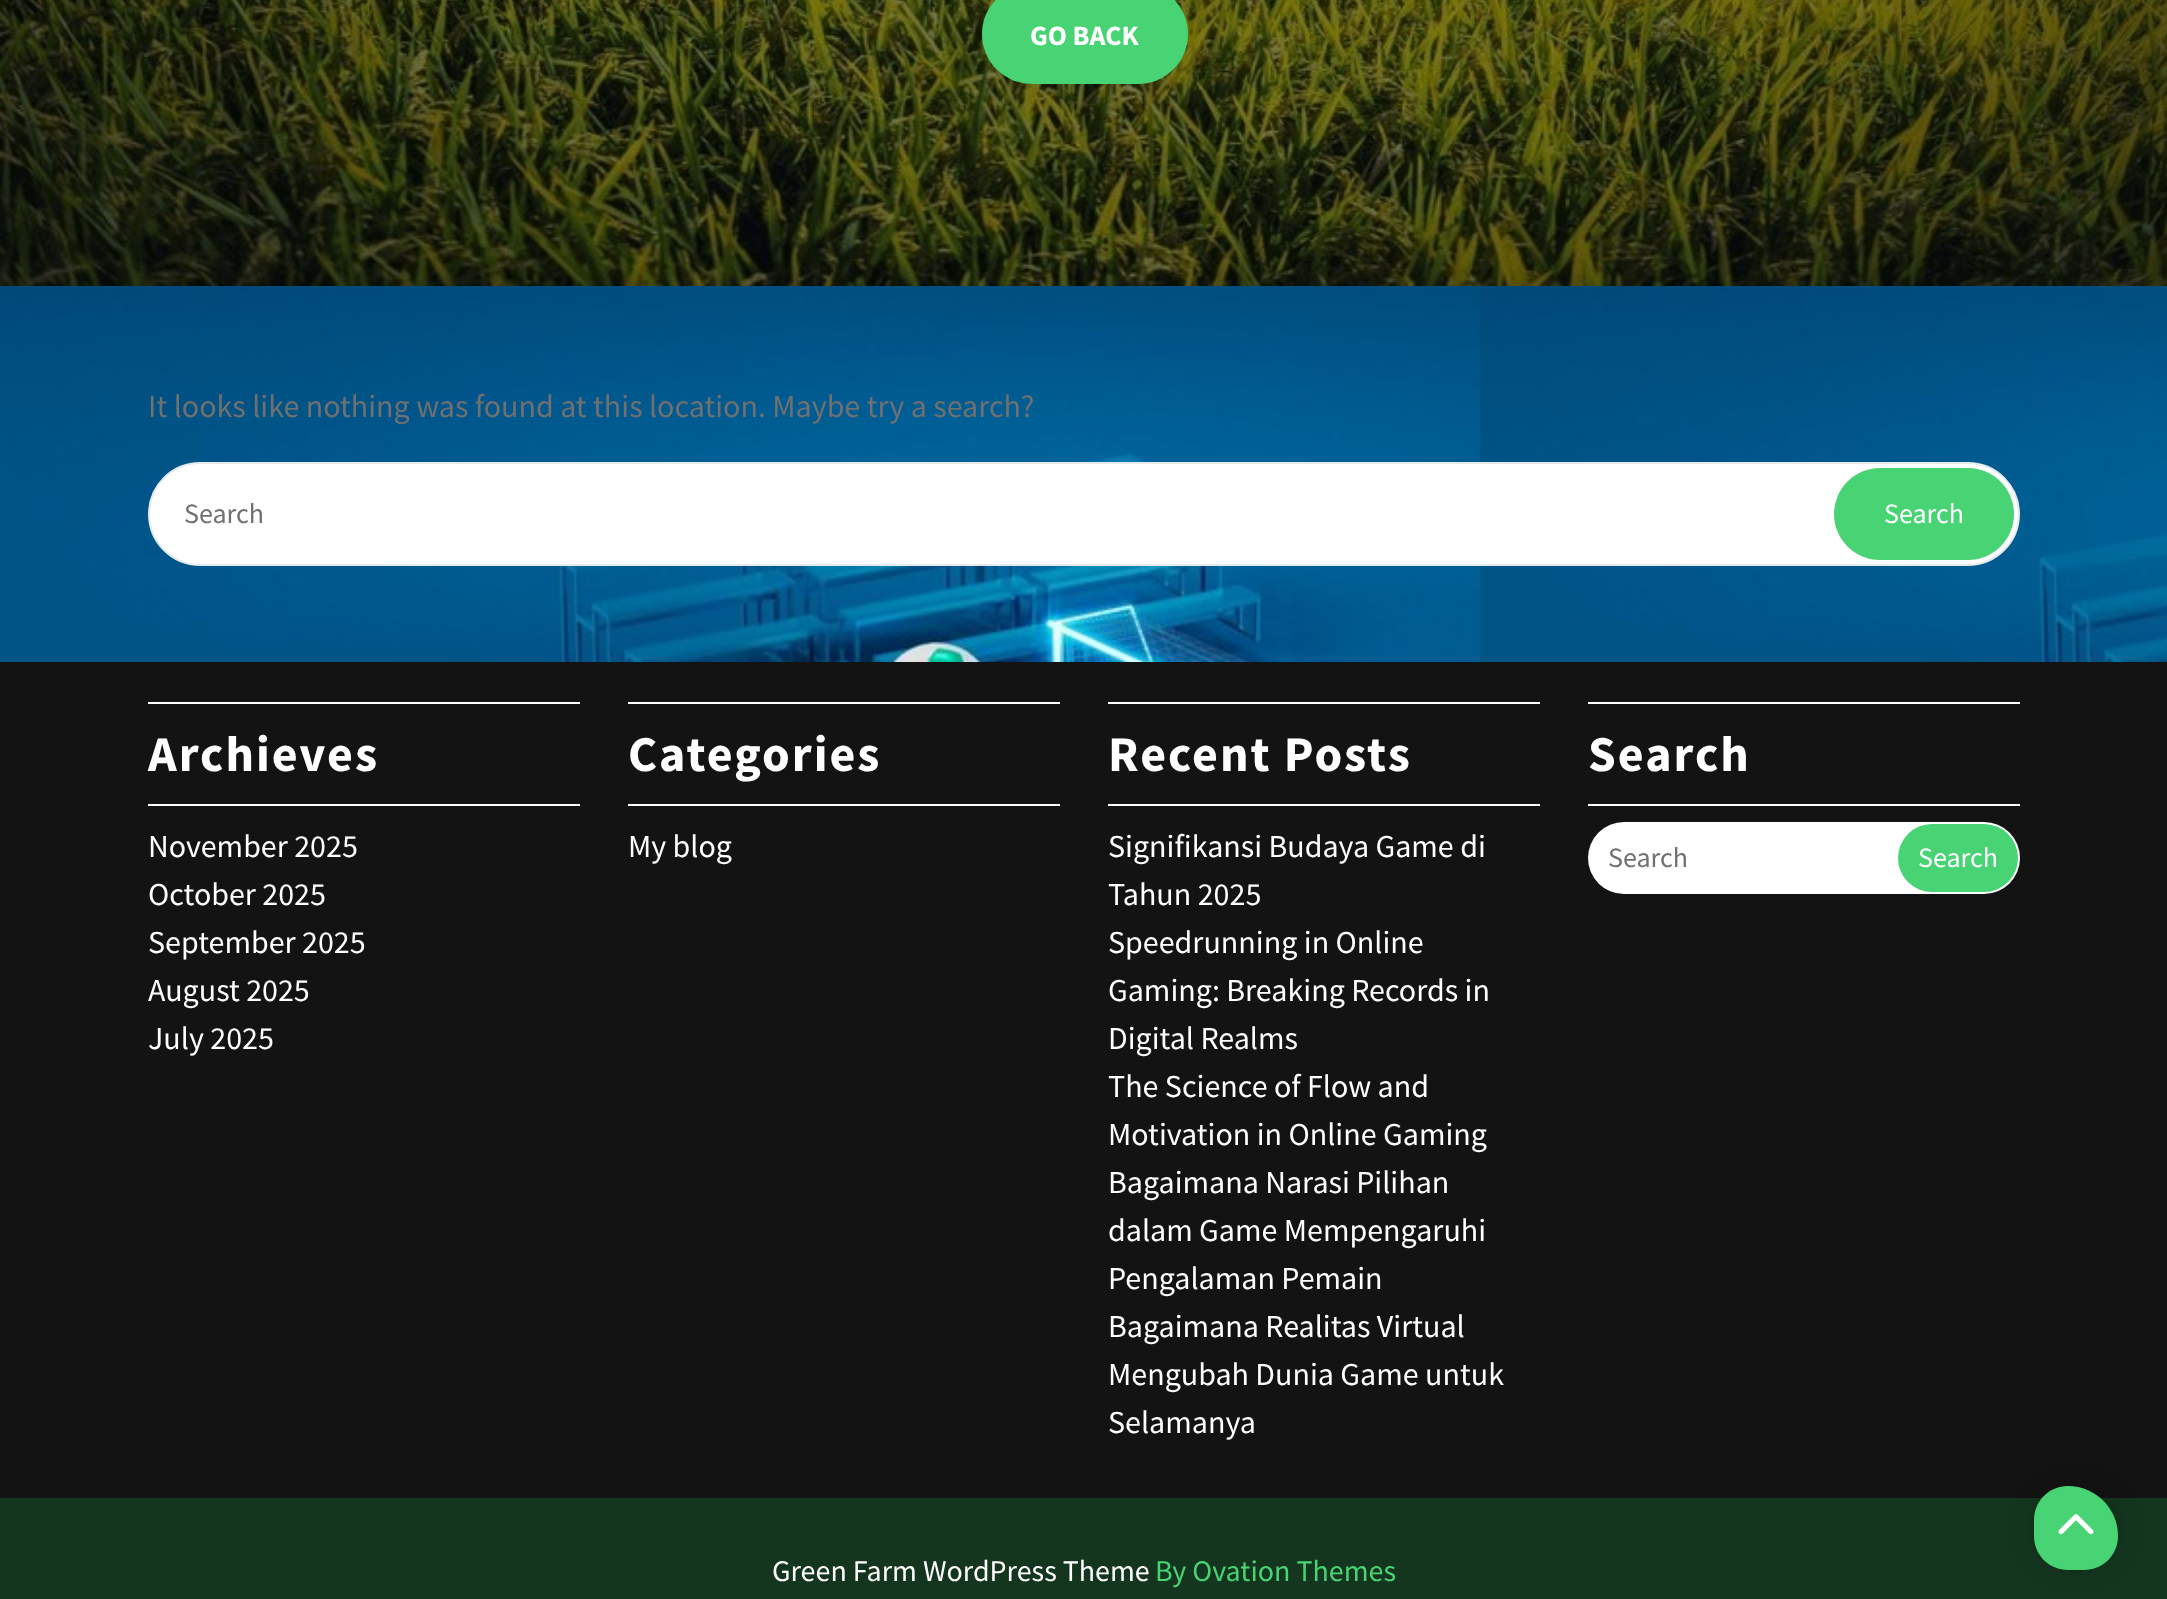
<svg xmlns="http://www.w3.org/2000/svg" width="2167" height="1599">
<rect width="100%" height="100%" fill="#fff"/>
<image x="0" y="286" width="2167" height="376" href="media/1.png"/>
<rect width="2167" height="286" fill="#000"/>
<image x="0" y="0" width="2167" height="286" href="media/2.png"/>
<rect x="982" y="-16" width="206" height="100" rx="50" fill="#48d475"/>
<text x="1030" y="45" style="font-family:Source Sans Pro;font-size:28px;font-weight:bold;fill:#fff">GO BACK</text>
<text x="148" y="417" style="font-family:Source Sans Pro;font-size:32px;fill:#707070">It looks like nothing was found at this location. Maybe try a search?</text>
<rect x="149" y="463" width="1870" height="102" rx="51" fill="#fff" stroke="#e5eaec" stroke-width="2"/>
<text x="184" y="523" style="font-family:Source Sans Pro;font-size:28px;fill:#707070">Search</text>
<rect x="1834" y="468" width="180" height="92" rx="46" fill="#48d475"/>
<text x="1884" y="523" style="font-family:Source Sans Pro;font-size:28px;fill:#fff">Search</text>
<rect y="662" width="2167" height="836" fill="#131313"/>
<rect x="148" y="702" width="432" height="2" fill="#fff"/>
<rect x="148" y="804" width="432" height="2" fill="#fff"/>
<text x="148" y="771" style="font-family:Source Sans Pro;font-size:50px;font-weight:bold;letter-spacing:2px;fill:#fff">Archieves</text>
<text x="148" y="857" style="font-family:Source Sans Pro;font-size:32px;fill:#fff">November 2025</text>
<text x="148" y="905" style="font-family:Source Sans Pro;font-size:32px;fill:#fff">October 2025</text>
<text x="148" y="953" style="font-family:Source Sans Pro;font-size:32px;fill:#fff">September 2025</text>
<text x="148" y="1001" style="font-family:Source Sans Pro;font-size:32px;fill:#fff">August 2025</text>
<text x="148" y="1049" style="font-family:Source Sans Pro;font-size:32px;fill:#fff">July 2025</text>
<rect x="628" y="702" width="432" height="2" fill="#fff"/>
<rect x="628" y="804" width="432" height="2" fill="#fff"/>
<text x="628" y="771" style="font-family:Source Sans Pro;font-size:50px;font-weight:bold;letter-spacing:2px;fill:#fff">Categories</text>
<text x="628" y="857" style="font-family:Source Sans Pro;font-size:32px;fill:#fff">My blog</text>
<rect x="1108" y="702" width="432" height="2" fill="#fff"/>
<rect x="1108" y="804" width="432" height="2" fill="#fff"/>
<text x="1108" y="771" style="font-family:Source Sans Pro;font-size:50px;font-weight:bold;letter-spacing:2px;fill:#fff">Recent Posts</text>
<text x="1108" y="857" style="font-family:Source Sans Pro;font-size:32px;fill:#fff">Signifikansi Budaya Game di</text>
<text x="1108" y="905" style="font-family:Source Sans Pro;font-size:32px;fill:#fff">Tahun 2025</text>
<text x="1108" y="953" style="font-family:Source Sans Pro;font-size:32px;fill:#fff">Speedrunning in Online</text>
<text x="1108" y="1001" style="font-family:Source Sans Pro;font-size:32px;fill:#fff">Gaming: Breaking Records in</text>
<text x="1108" y="1049" style="font-family:Source Sans Pro;font-size:32px;fill:#fff">Digital Realms</text>
<text x="1108" y="1097" style="font-family:Source Sans Pro;font-size:32px;fill:#fff">The Science of Flow and</text>
<text x="1108" y="1145" style="font-family:Source Sans Pro;font-size:32px;fill:#fff">Motivation in Online Gaming</text>
<text x="1108" y="1193" style="font-family:Source Sans Pro;font-size:32px;fill:#fff">Bagaimana Narasi Pilihan</text>
<text x="1108" y="1241" style="font-family:Source Sans Pro;font-size:32px;fill:#fff">dalam Game Mempengaruhi</text>
<text x="1108" y="1289" style="font-family:Source Sans Pro;font-size:32px;fill:#fff">Pengalaman Pemain</text>
<text x="1108" y="1337" style="font-family:Source Sans Pro;font-size:32px;fill:#fff">Bagaimana Realitas Virtual</text>
<text x="1108" y="1385" style="font-family:Source Sans Pro;font-size:32px;fill:#fff">Mengubah Dunia Game untuk</text>
<text x="1108" y="1433" style="font-family:Source Sans Pro;font-size:32px;fill:#fff">Selamanya</text>
<rect x="1588" y="702" width="432" height="2" fill="#fff"/>
<rect x="1588" y="804" width="432" height="2" fill="#fff"/>
<text x="1588" y="771" style="font-family:Source Sans Pro;font-size:50px;font-weight:bold;letter-spacing:2px;fill:#fff">Search</text>
<rect x="1588" y="822" width="432" height="72" rx="36" fill="#fff"/>
<text x="1608" y="867" style="font-family:Source Sans Pro;font-size:28px;fill:#707070">Search</text>
<rect x="1898" y="824" width="120" height="68" rx="34" fill="#48d475"/>
<text x="1918" y="867" style="font-family:Source Sans Pro;font-size:28px;fill:#fff">Search</text>
<rect y="1498" width="2167" height="101" fill="#14361f"/>
<text x="772" y="1581" style="font-family:Source Sans Pro;font-size:30px;fill:#fff">Green Farm WordPress Theme</text>
<text x="1155" y="1581" style="font-family:Source Sans Pro;font-size:30px;fill:#48d475">By Ovation Themes</text>
<rect x="2034" y="1486" width="84" height="84" rx="50" fill="#00000033" filter="blur(12px)"/>
<path d="M2068 1486c27.5 0 50 22.5 50 50c0 19-15 34-34 34h-16c-19 0-34-15-34-34v-16c0-19 15-34 34-34z" fill="#48d475"/>
<image x="2058" y="1514" width="36" height="21" href="media/3.png"/>
</svg>
